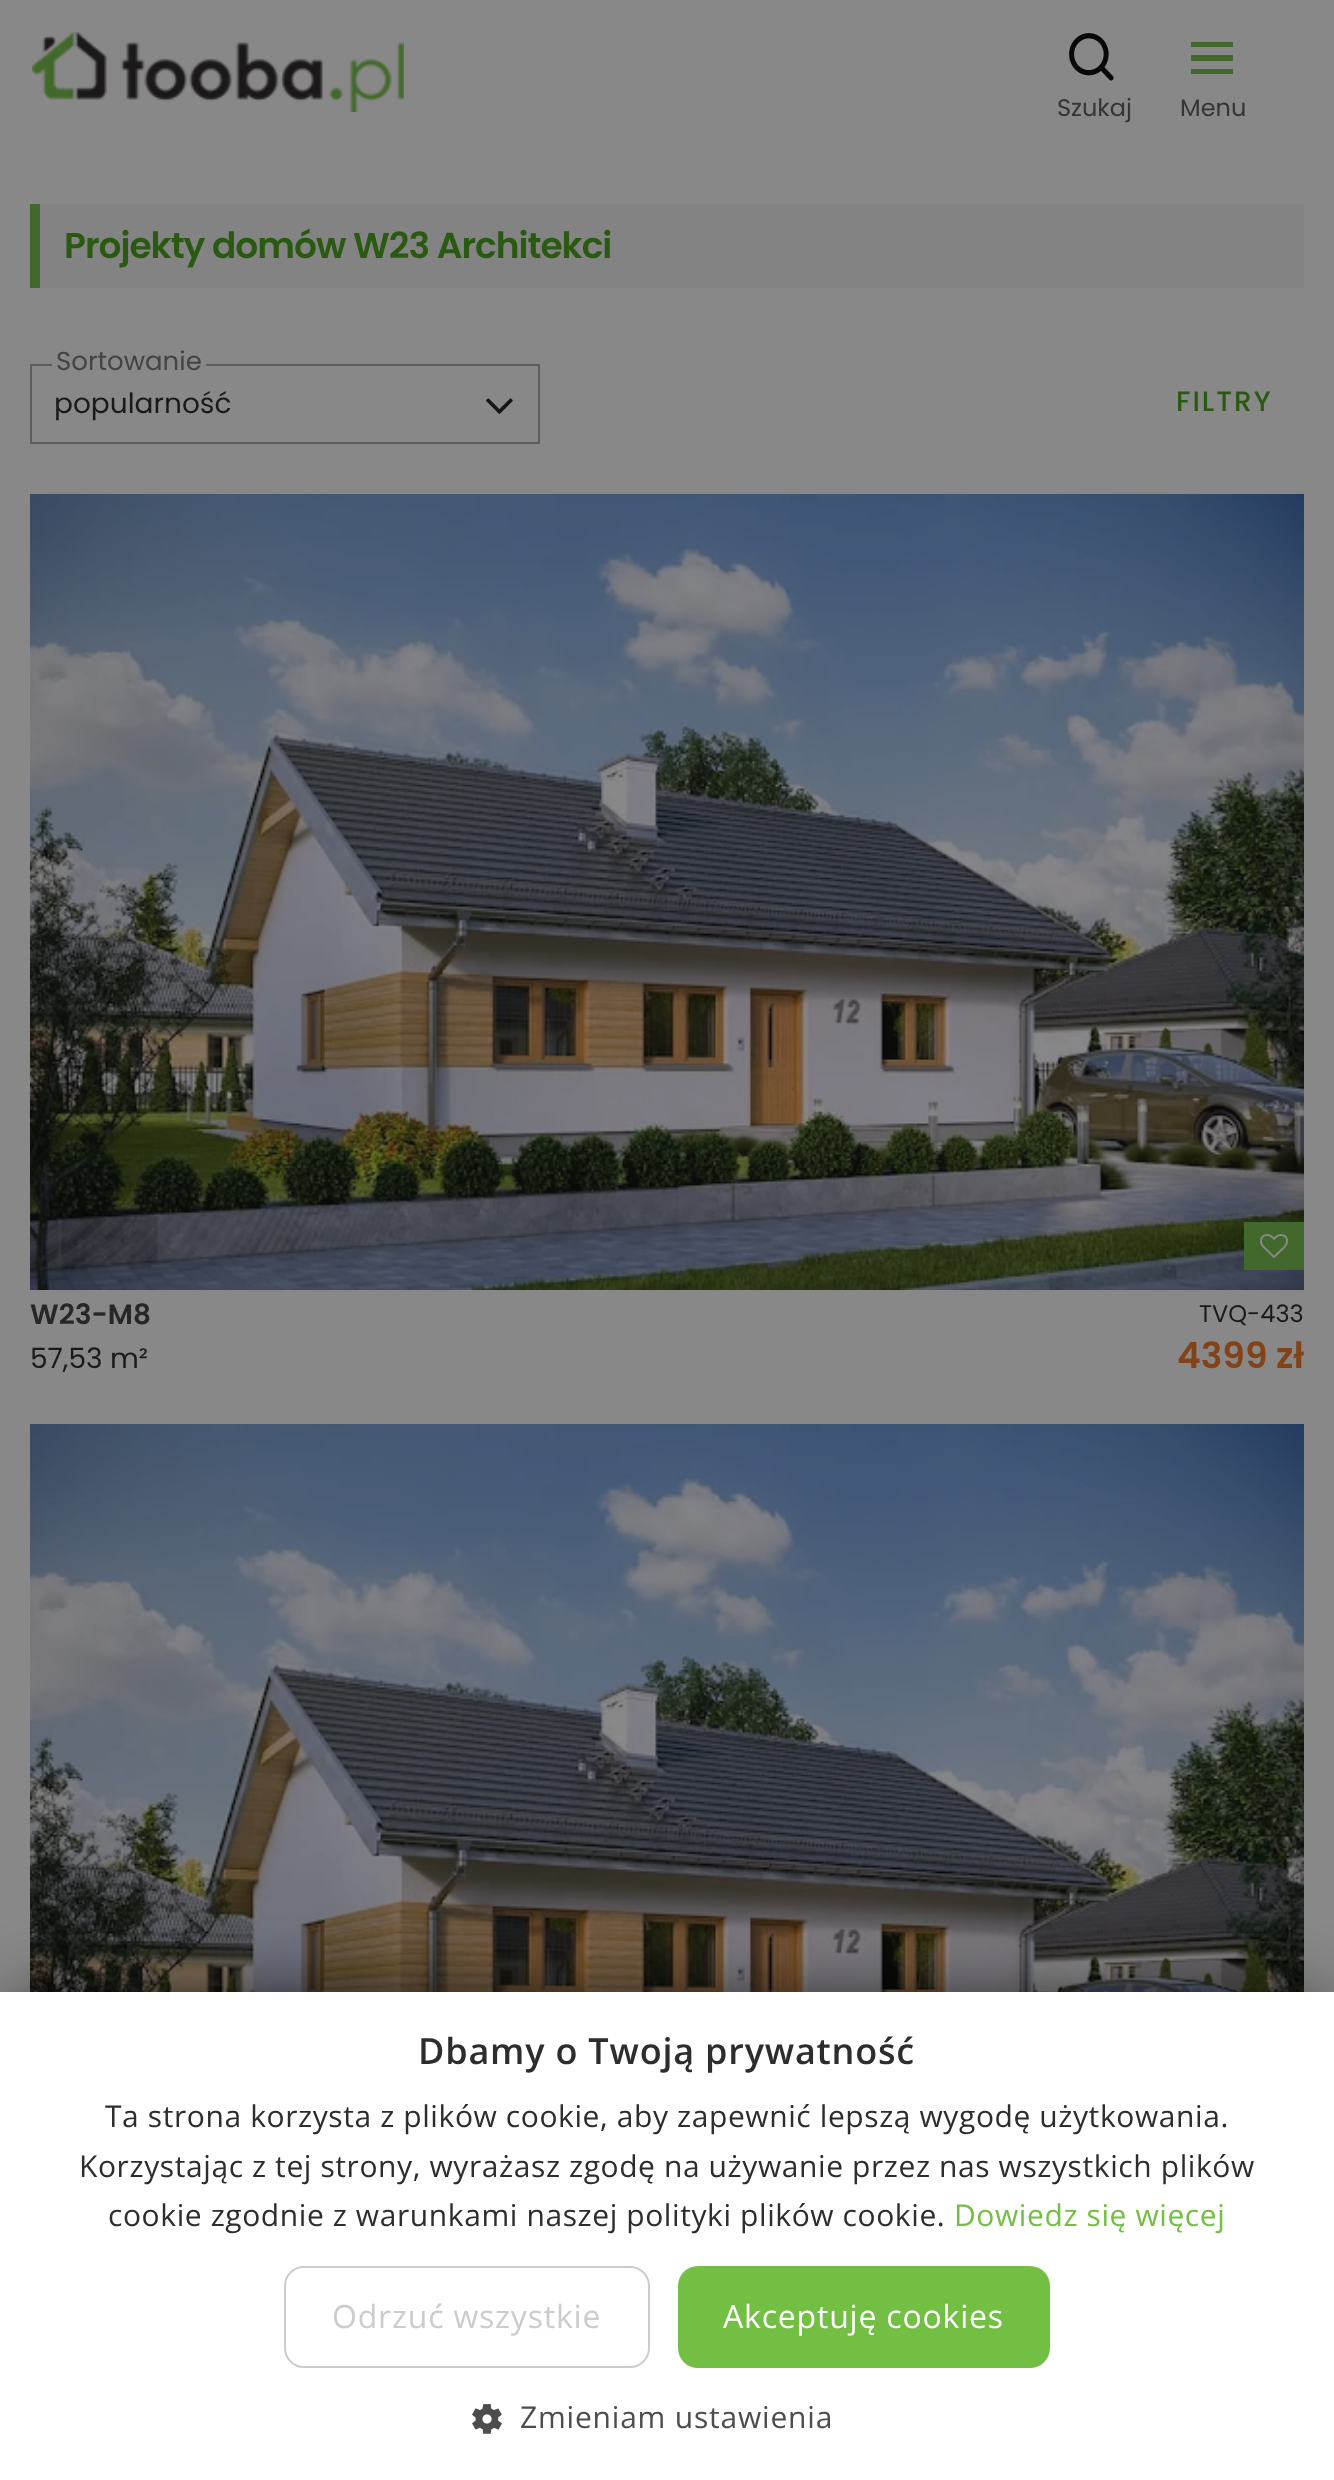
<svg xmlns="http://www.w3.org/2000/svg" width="1334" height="2480">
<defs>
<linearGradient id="g1" gradientUnits="userSpaceOnUse" x1="129" y1="346" x2="129" y2="378"><stop offset="0" stop-color="#090909" stop-opacity="0"/><stop offset="0.37" stop-color="#888" stop-opacity="0"/><stop offset="0.37" stop-color="#888"/><stop offset="0.87" stop-color="#888"/><stop offset="0.87" stop-color="#888" stop-opacity="0"/></linearGradient>
</defs>
<rect width="100%" height="100%" fill="#888"/>
<image x="32" y="32" width="372" height="80" href="media/1.png"/>
<image x="1069" y="33" width="45" height="48" href="media/2.png"/>
<text x="1057" y="116" style="font-family:Poppins;font-size:24px;fill:#353535">Szukaj</text>
<path d="M1233 47h-42v-5h42zm0 14h-42v-6h42zm0 13h-42v-5h42z" fill="#42682b"/>
<text x="1180" y="116" style="font-family:Poppins;font-size:24px;fill:#353535">Menu</text>
<rect x="40" y="204" width="1264" height="84" fill="#838383"/>
<rect x="30" y="204" width="10" height="84" fill="#42682b"/>
<text x="64" y="258" style="font-family:Poppins;font-size:36px;font-weight:600;letter-spacing:-1px;fill:#2a5a12">Projekty domów W23 Architekci</text>
<rect x="31" y="365" width="508" height="78" fill="none" stroke="#5e5e5e" stroke-width="2"/>
<rect x="52" y="364" width="154" height="2" fill="url(#g1)"/>
<text x="56" y="370" style="font-family:Poppins;font-size:26px;fill:#444">Sortowanie</text>
<text x="54" y="413" style="font-family:Poppins;font-size:28px;fill:#1a1a1a">popularność</text>
<image x="486" y="398" width="27" height="16" href="media/3.png"/>
<text x="1176" y="411" style="font-family:Poppins;font-size:28px;font-weight:500;letter-spacing:2px;fill:#2a5a12">FILTRY</text>
<image x="30" y="494" width="1274" height="796" href="media/4.png"/>
<rect x="1244" y="1222" width="60" height="48" fill="#42682b"/>
<image x="1260" y="1234" width="28" height="24" href="media/5.png"/>
<text x="30" y="1324" style="font-family:Poppins;font-size:28px;font-weight:600;fill:#272727">W23-M8</text>
<text x="1199" y="1322" style="font-family:Poppins;font-size:24px;fill:#1a1a1a">TVQ-433</text>
<text x="30" y="1368" style="font-family:Poppins;font-size:28px;fill:#1a1a1a">57,53 m²</text>
<text x="1177" y="1368" style="font-family:Poppins;font-size:36px;font-weight:600;fill:#824319">4399 zł</text>
<image x="30" y="1424" width="1274" height="568" href="media/6.png"/>
<rect x="20" y="2012" width="1294" height="448" fill="#000" filter="blur(40px)"/>
<rect y="1992" width="1334" height="488" fill="#fff"/>
<text x="418" y="2064" style="font-family:Open Sans;font-size:36px;font-weight:600;letter-spacing:0.8px;fill:#2d2d2d">Dbamy o Twoją prywatność</text>
<text x="105" y="2127" style="font-family:Open Sans;font-size:30px;letter-spacing:0.6px;fill:#2d2d2d">Ta strona korzysta z plików cookie, aby zapewnić lepszą wygodę użytkowania.</text>
<text x="79" y="2177" style="font-family:Open Sans;font-size:30px;letter-spacing:0.6px;fill:#2d2d2d">Korzystając z tej strony, wyrażasz zgodę na używanie przez nas wszystkich plików</text>
<text x="108" y="2226" style="font-family:Open Sans;font-size:30px;letter-spacing:0.6px;fill:#2d2d2d">cookie zgodnie z warunkami naszej polityki plików cookie.</text>
<text x="954" y="2226" style="font-family:Open Sans;font-size:30px;letter-spacing:0.6px;fill:#73bf44">Dowiedz się więcej</text>
<rect x="285" y="2267" width="364" height="100" rx="19" fill="none" stroke="#ccc" stroke-width="2"/>
<text x="332" y="2328" style="font-family:Open Sans;font-size:32px;letter-spacing:0.8px;fill:#ccc">Odrzuć wszystkie</text>
<rect x="678" y="2266" width="372" height="102" rx="20" fill="#73bf44"/>
<text x="723" y="2328" style="font-family:Open Sans;font-size:32px;letter-spacing:0.8px;fill:#fff">Akceptuję cookies</text>
<image x="472" y="2404" width="30" height="30" href="media/7.png"/>
<text x="520" y="2428" style="font-family:Open Sans;font-size:30px;letter-spacing:0.8px;fill:#4d4d4d">Zmieniam ustawienia</text>
</svg>
